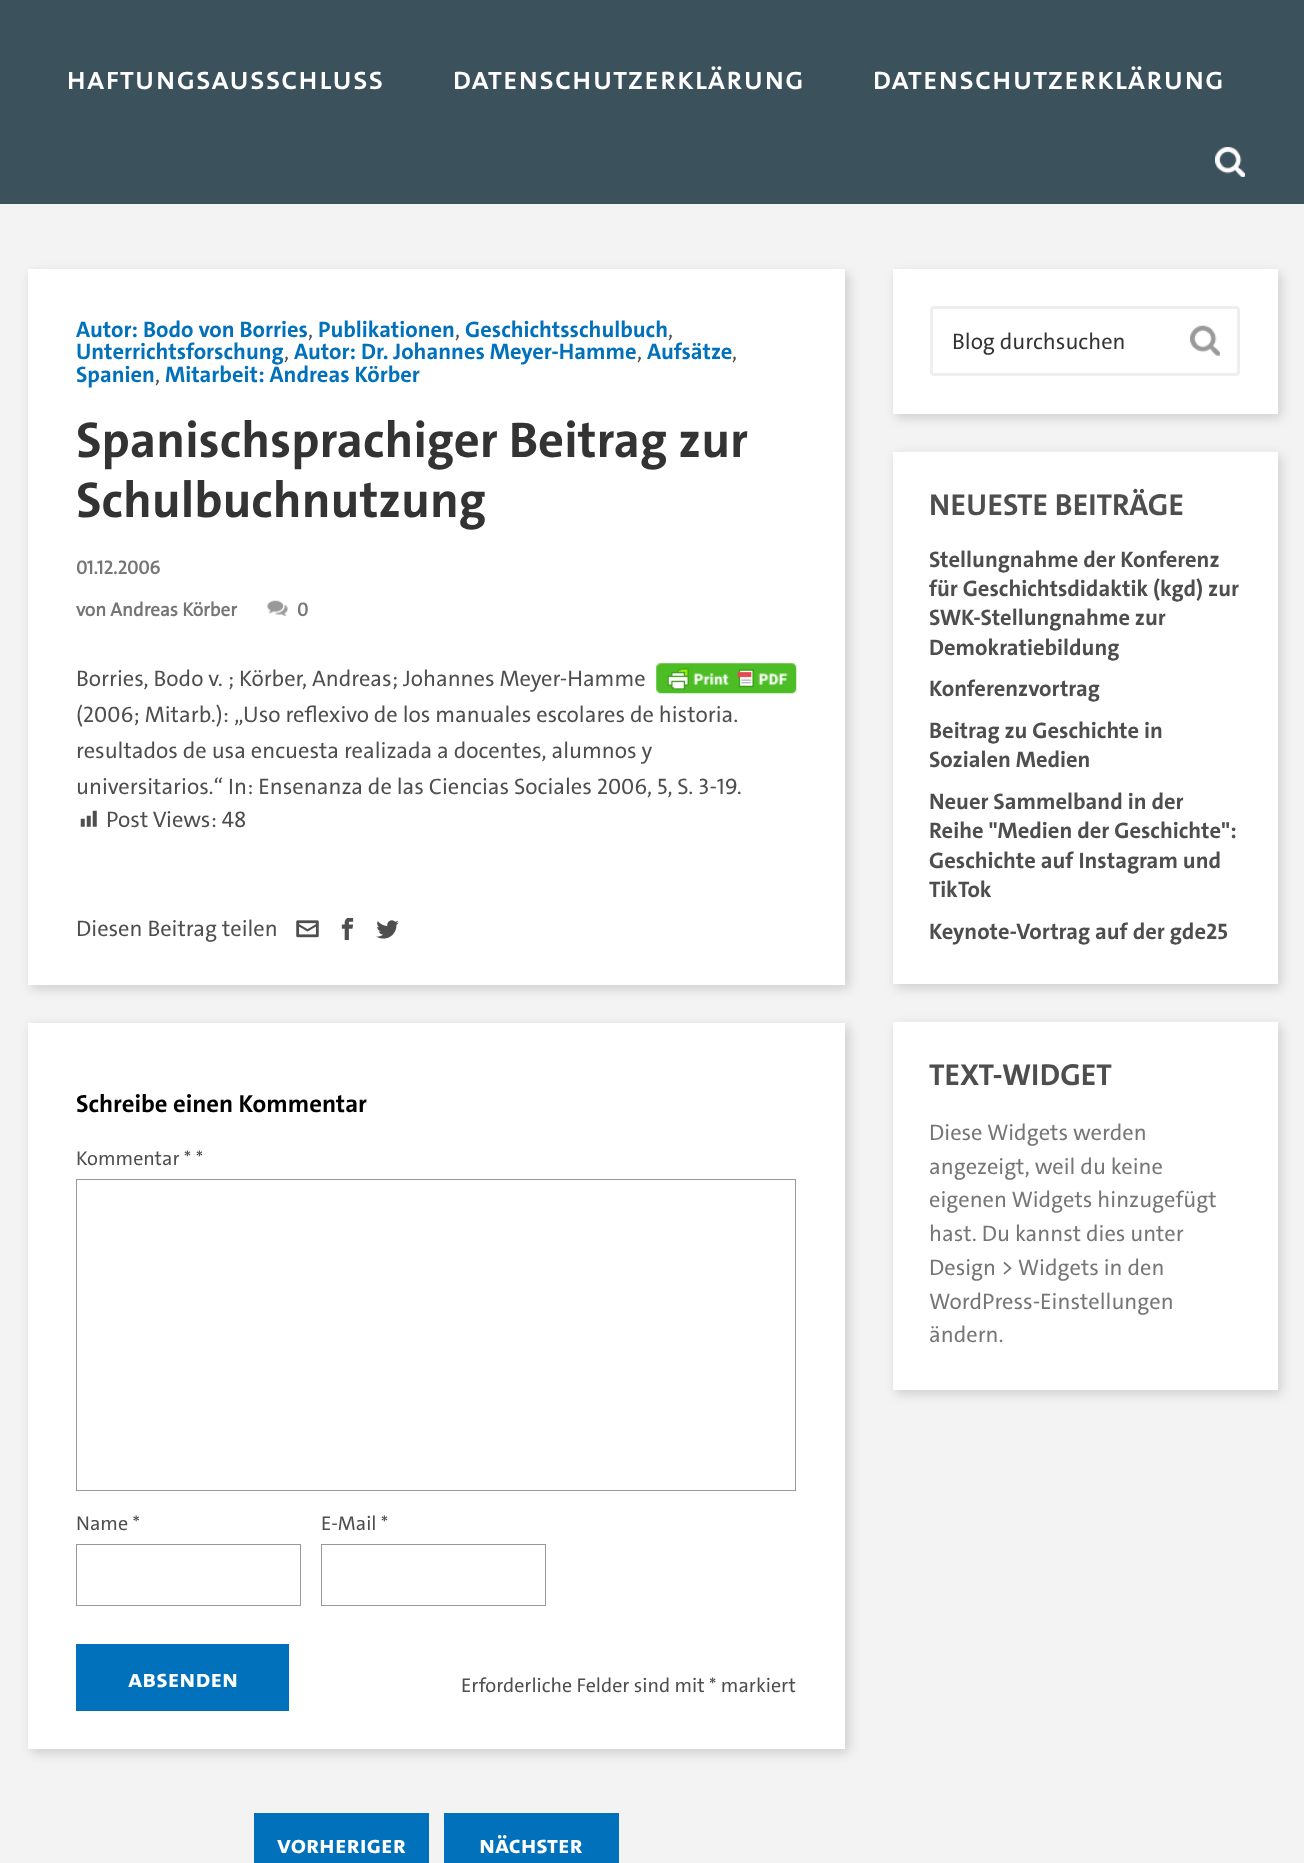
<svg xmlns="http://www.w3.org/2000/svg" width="1304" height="1863">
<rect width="100%" height="100%" fill="#f3f3f3"/>
<rect width="1304" height="204" fill="#3b515c"/>
<text x="66" y="89" style="font-family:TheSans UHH;font-size:31.25px;font-weight:bold;letter-spacing:1.25px;fill:#fff">HAFTUNGSAUSSCHLUSS</text>
<text x="452" y="89" style="font-family:TheSans UHH;font-size:31.25px;font-weight:bold;letter-spacing:1.25px;fill:#fff">DATENSCHUTZERKLÄRUNG</text>
<text x="872" y="89" style="font-family:TheSans UHH;font-size:31.25px;font-weight:bold;letter-spacing:1.25px;fill:#fff">DATENSCHUTZERKLÄRUNG</text>
<image x="1215" y="147" width="30" height="30" href="media/1.png"/>
<rect x="31" y="273" width="818" height="716" fill="#00000026" filter="blur(5.5px)"/>
<rect x="28" y="269" width="817" height="716" fill="#fff"/>
<text x="76" y="337" style="font-family:'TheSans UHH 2';font-size:22.5px;font-weight:bold;fill:#0271bb">Autor: Bodo von Borries</text>
<text x="308" y="337" style="font-family:TheSans UHH;font-size:22.5px;fill:#4e4e4e">,</text>
<text x="318" y="337" style="font-family:'TheSans UHH 2';font-size:22.5px;font-weight:bold;fill:#0271bb">Publikationen</text>
<text x="455" y="337" style="font-family:TheSans UHH;font-size:22.5px;fill:#4e4e4e">,</text>
<text x="465" y="337" style="font-family:'TheSans UHH 2';font-size:22.5px;font-weight:bold;fill:#0271bb">Geschichtsschulbuch</text>
<text x="668" y="337" style="font-family:TheSans UHH;font-size:22.5px;fill:#4e4e4e">,</text>
<text x="76" y="359" style="font-family:'TheSans UHH 2';font-size:22.5px;font-weight:bold;fill:#0271bb">Unterrichtsforschung</text>
<text x="284" y="359" style="font-family:TheSans UHH;font-size:22.5px;fill:#4e4e4e">,</text>
<text x="294" y="359" style="font-family:'TheSans UHH 2';font-size:22.5px;font-weight:bold;fill:#0271bb">Autor: Dr. Johannes Meyer-Hamme</text>
<text x="637" y="359" style="font-family:TheSans UHH;font-size:22.5px;fill:#4e4e4e">,</text>
<text x="647" y="359" style="font-family:'TheSans UHH 2';font-size:22.5px;font-weight:bold;fill:#0271bb">Aufsätze</text>
<text x="732" y="359" style="font-family:TheSans UHH;font-size:22.5px;fill:#4e4e4e">,</text>
<text x="76" y="382" style="font-family:'TheSans UHH 2';font-size:22.5px;font-weight:bold;fill:#0271bb">Spanien</text>
<text x="155" y="382" style="font-family:TheSans UHH;font-size:22.5px;fill:#4e4e4e">,</text>
<text x="165" y="382" style="font-family:'TheSans UHH 2';font-size:22.5px;font-weight:bold;fill:#0271bb">Mitarbeit: Andreas Körber</text>
<text x="76" y="457" style="font-family:'TheSans UHH 2';font-size:50.6px;font-weight:bold;fill:#333">Spanischsprachiger Beitrag zur</text>
<text x="76" y="517" style="font-family:'TheSans UHH 2';font-size:50.6px;font-weight:bold;fill:#333">Schulbuchnutzung</text>
<text x="76" y="574" style="font-family:'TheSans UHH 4';font-size:19.1px;font-weight:bold;fill:#767676">01.12.2006</text>
<text x="76" y="616" style="font-family:'TheSans UHH 4';font-size:19.1px;font-weight:bold;fill:#767676">von Andreas Körber</text>
<image x="267" y="600" width="21" height="16" href="media/2.png"/>
<text x="297" y="616" style="font-family:'TheSans UHH 4';font-size:19.1px;font-weight:bold;fill:#767676">0</text>
<image x="656" y="663" width="141" height="31" href="media/3.png"/>
<text x="76" y="686" style="font-family:TheSans UHH;font-size:22.5px;fill:#4e4e4e">Borries, Bodo v. ; Körber, Andreas; Johannes Meyer-Hamme</text>
<text x="76" y="722" style="font-family:TheSans UHH;font-size:22.5px;fill:#4e4e4e">(2006; Mitarb.): „Uso reflexivo de los manuales escolares de historia.</text>
<text x="76" y="758" style="font-family:TheSans UHH;font-size:22.5px;fill:#4e4e4e">resultados de usa encuesta realizada a docentes, alumnos y</text>
<text x="76" y="794" style="font-family:TheSans UHH;font-size:22.5px;fill:#4e4e4e">universitarios.“ In: Ensenanza de las Ciencias Sociales 2006, 5, S. 3-19.</text>
<image x="80" y="810" width="17" height="17" href="media/4.png"/>
<text x="106" y="827" style="font-family:TheSans UHH;font-size:22.5px;fill:#4e4e4e">Post Views: 48</text>
<text x="76" y="936" style="font-family:TheSans UHH;font-size:22.5px;fill:#4e4e4e">Diesen Beitrag teilen</text>
<image x="296" y="920" width="23" height="18" href="media/5.png"/>
<image x="341" y="918" width="13" height="22" href="media/6.png"/>
<image x="376" y="920" width="23" height="19" href="media/7.png"/>
<rect x="31" y="1026" width="818" height="727" fill="#00000026" filter="blur(5.5px)"/>
<rect x="28" y="1023" width="817" height="726" fill="#fff"/>
<text x="76" y="1112" style="font-family:'TheSans UHH 2';font-size:24.75px;font-weight:bold;fill:#000">Schreibe einen Kommentar</text>
<text x="76" y="1165" style="font-family:TheSans UHH;font-size:20px;fill:#4e4e4e">Kommentar * *</text>
<rect x="76.5" y="1179.5" width="719" height="311" fill="none" stroke="#999"/>
<text x="76" y="1530" style="font-family:TheSans UHH;font-size:20px;fill:#4e4e4e">Name *</text>
<rect x="76.5" y="1544.5" width="224" height="61" fill="none" stroke="#999"/>
<text x="321" y="1530" style="font-family:TheSans UHH;font-size:20px;fill:#4e4e4e">E-Mail *</text>
<rect x="321.5" y="1544.5" width="224" height="61" fill="none" stroke="#999"/>
<rect x="76" y="1644" width="213" height="67" fill="#0271bb"/>
<text x="128" y="1687" style="font-family:'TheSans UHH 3';font-size:25px;font-weight:bold;fill:#fff">absenden</text>
<text x="461" y="1692" style="font-family:TheSans UHH;font-size:20px;fill:#4e4e4e">Erforderliche Felder sind mit * markiert</text>
<rect x="254" y="1813" width="175" height="50" fill="#0271bb"/>
<text x="277" y="1853" style="font-family:'TheSans UHH 3';font-size:25px;font-weight:bold;fill:#fff">vorheriger</text>
<rect x="444" y="1813" width="175" height="50" fill="#0271bb"/>
<text x="479" y="1853" style="font-family:'TheSans UHH 3';font-size:25px;font-weight:bold;fill:#fff">nächster</text>
<rect x="896" y="273" width="385" height="145" fill="#00000026" filter="blur(5.5px)"/>
<rect x="893" y="269" width="385" height="145" fill="#fff"/>
<rect x="931.5" y="307.5" width="307" height="67" rx="2.5" fill="none" stroke="#eee" stroke-width="3"/>
<text x="952" y="349" style="font-family:TheSans UHH;font-size:22.5px;fill:#333">Blog durchsuchen</text>
<image x="1190" y="325" width="30" height="31" href="media/8.png"/>
<rect x="896" y="455" width="385" height="533" fill="#00000026" filter="blur(5.5px)"/>
<rect x="893" y="452" width="385" height="532" fill="#fff"/>
<rect x="893" y="451" width="385" height="1" fill="#eee"/>
<text x="929" y="515" style="font-family:'TheSans UHH 2';font-size:30.5px;font-weight:bold;fill:#4e4e4e">NEUESTE BEITRÄGE</text>
<text x="929" y="567" style="font-family:'TheSans UHH 2';font-size:22.5px;font-weight:bold;fill:#4e4e4e">Stellungnahme der Konferenz</text>
<text x="929" y="596" style="font-family:'TheSans UHH 2';font-size:22.5px;font-weight:bold;fill:#4e4e4e">für Geschichtsdidaktik (kgd) zur</text>
<text x="929" y="625" style="font-family:'TheSans UHH 2';font-size:22.5px;font-weight:bold;fill:#4e4e4e">SWK-Stellungnahme zur</text>
<text x="929" y="655" style="font-family:'TheSans UHH 2';font-size:22.5px;font-weight:bold;fill:#4e4e4e">Demokratiebildung</text>
<text x="929" y="696" style="font-family:'TheSans UHH 2';font-size:22.5px;font-weight:bold;fill:#4e4e4e">Konferenzvortrag</text>
<text x="929" y="738" style="font-family:'TheSans UHH 2';font-size:22.5px;font-weight:bold;fill:#4e4e4e">Beitrag zu Geschichte in</text>
<text x="929" y="767" style="font-family:'TheSans UHH 2';font-size:22.5px;font-weight:bold;fill:#4e4e4e">Sozialen Medien</text>
<text x="929" y="809" style="font-family:'TheSans UHH 2';font-size:22.5px;font-weight:bold;fill:#4e4e4e">Neuer Sammelband in der</text>
<text x="929" y="838" style="font-family:'TheSans UHH 2';font-size:22.5px;font-weight:bold;fill:#4e4e4e">Reihe "Medien der Geschichte":</text>
<text x="929" y="868" style="font-family:'TheSans UHH 2';font-size:22.5px;font-weight:bold;fill:#4e4e4e">Geschichte auf Instagram und</text>
<text x="929" y="897" style="font-family:'TheSans UHH 2';font-size:22.5px;font-weight:bold;fill:#4e4e4e">TikTok</text>
<text x="929" y="939" style="font-family:'TheSans UHH 2';font-size:22.5px;font-weight:bold;fill:#4e4e4e">Keynote-Vortrag auf der gde25</text>
<rect x="896" y="1025" width="385" height="369" fill="#00000026" filter="blur(5.5px)"/>
<rect x="893" y="1022" width="385" height="368" fill="#fff"/>
<rect x="893" y="1021" width="385" height="1" fill="#eee"/>
<text x="929" y="1085" style="font-family:'TheSans UHH 2';font-size:30.5px;font-weight:bold;fill:#4e4e4e">TEXT-WIDGET</text>
<text x="929" y="1140" style="font-family:TheSans UHH;font-size:22.5px;fill:#767676">Diese Widgets werden</text>
<text x="929" y="1174" style="font-family:TheSans UHH;font-size:22.5px;fill:#767676">angezeigt, weil du keine</text>
<text x="929" y="1207" style="font-family:TheSans UHH;font-size:22.5px;fill:#767676">eigenen Widgets hinzugefügt</text>
<text x="929" y="1241" style="font-family:TheSans UHH;font-size:22.5px;fill:#767676">hast. Du kannst dies unter</text>
<text x="929" y="1275" style="font-family:TheSans UHH;font-size:22.5px;fill:#767676">Design &gt; Widgets in den</text>
<text x="929" y="1309" style="font-family:TheSans UHH;font-size:22.5px;fill:#767676">WordPress-Einstellungen</text>
<text x="929" y="1342" style="font-family:TheSans UHH;font-size:22.5px;fill:#767676">ändern.</text>
</svg>
